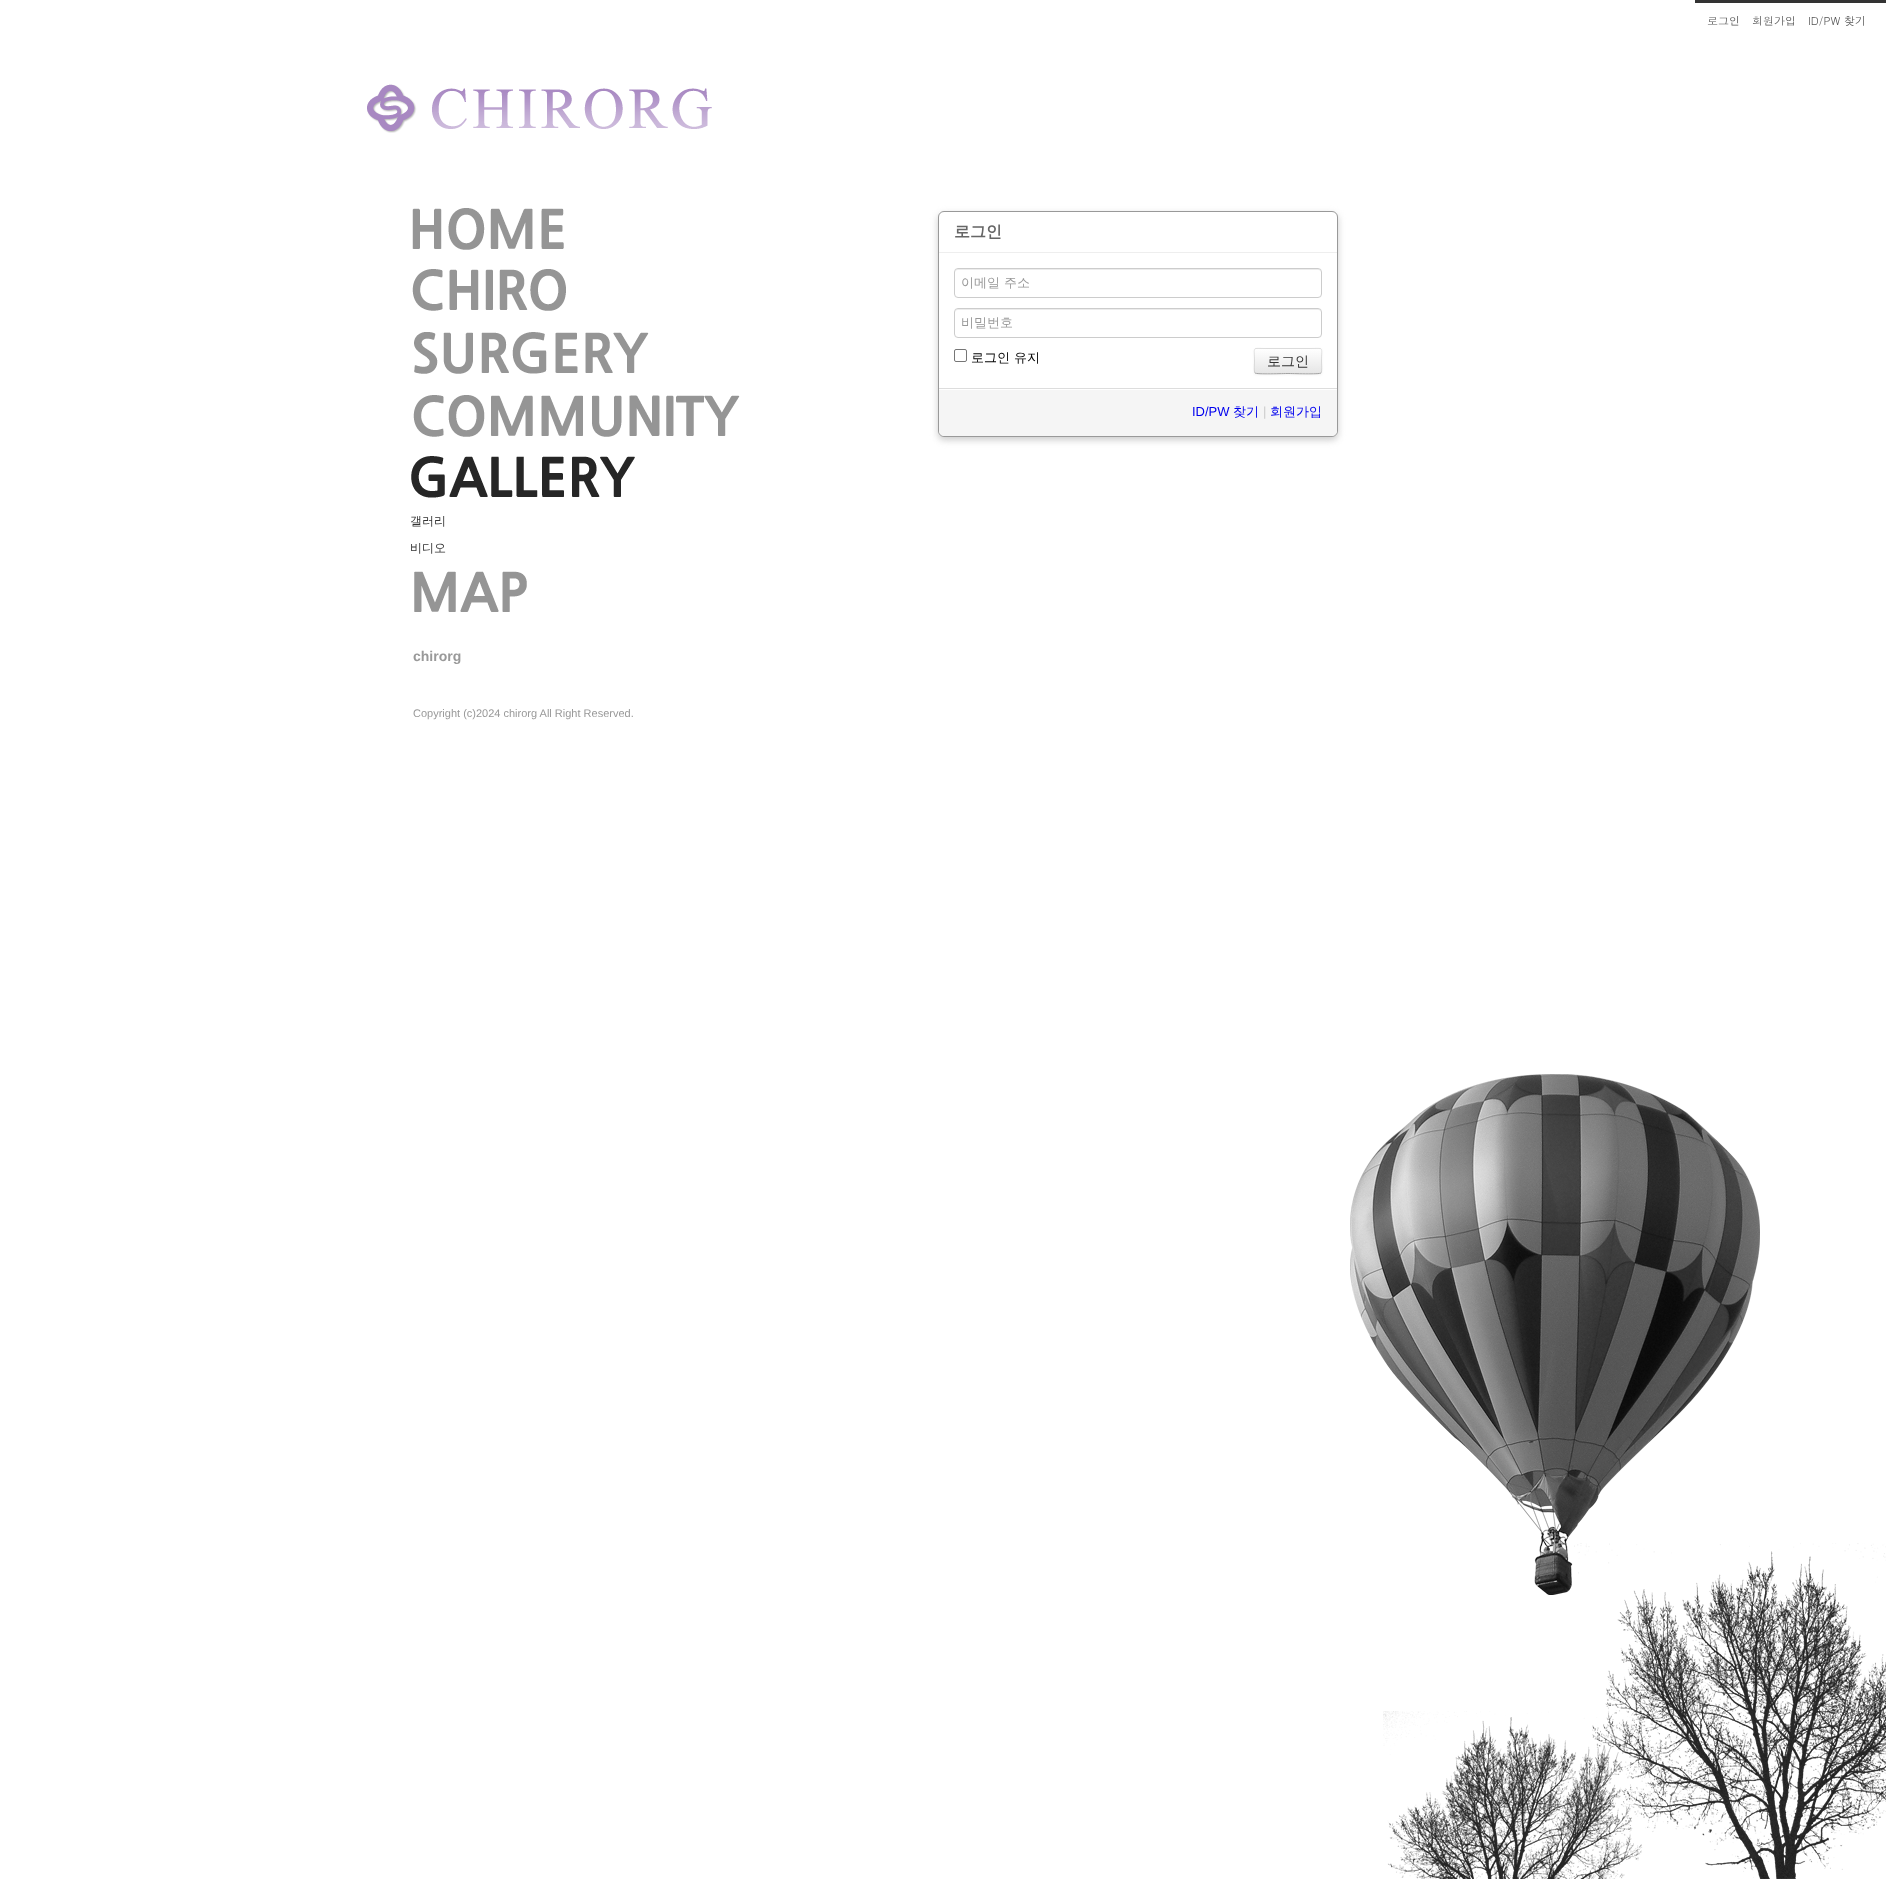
<svg xmlns="http://www.w3.org/2000/svg" width="1886" height="1882">
<defs>
<clipPath id="clip1"><rect x="1254" y="348" width="68" height="26" rx="2"/></clipPath>
<linearGradient id="g1" gradientUnits="userSpaceOnUse" x1="1288" y1="349" x2="1288" y2="373"><stop offset="0" stop-color="#fff"/><stop offset="1" stop-color="#e6e6e6"/></linearGradient>
</defs>
<rect width="100%" height="100%" fill="#fff"/>
<rect x="1695" width="191" height="3" fill="#333"/>
<text x="1707" y="25" style="font-family:Dotum;font-size:11px;fill:#555">로그인</text>
<text x="1752" y="25" style="font-family:Dotum;font-size:11px;fill:#555">회원가입</text>
<text x="1808" y="25" style="font-family:Dotum;font-size:11px;fill:#555">ID/PW 찾기</text>
<image x="367" y="84" width="345" height="49" href="media/1.png"/>
<rect x="938" y="214" width="400" height="226" rx="6" fill="#ccc" filter="blur(3.5px)"/>
<rect x="938.5" y="211.5" width="399" height="225" rx="5.5" fill="#fff" stroke="#999"/>
<rect x="939" y="252" width="398" height="1" fill="#eee"/>
<text x="954" y="237" style="font-family:WenQuanYi Zen Hei;font-size:16px;font-weight:bold;fill:#666">로그인</text>
<path d="M958 270h360c2 0 3 1 3 3c0-2-1-4-3-4h-360l-2 1l-1 3c0-2 1-3 3-3z" fill="#ececec"/>
<rect x="954.5" y="268.5" width="367" height="29" rx="3.5" fill="none" stroke="#ccc"/>
<text x="961" y="287" style="font-family:WenQuanYi Zen Hei;font-size:13px;font-weight:500;fill:#999">이메일 주소</text>
<path d="M958 310h360c2 0 3 1 3 3c0-2-1-4-3-4h-360l-2 1l-1 3c0-2 1-3 3-3z" fill="#ececec"/>
<rect x="954.5" y="308.5" width="367" height="29" rx="3.5" fill="none" stroke="#ccc"/>
<text x="961" y="327" style="font-family:WenQuanYi Zen Hei;font-size:13px;font-weight:500;fill:#999">비밀번호</text>
<rect x="954.5" y="349.5" width="12" height="12" rx="1.5" fill="none" stroke="#767676"/>
<text x="971" y="362" style="font-family:WenQuanYi Zen Hei;font-size:13px;font-weight:500;fill:#000">로그인 유지</text>
<rect x="1254" y="349" width="68" height="26" rx="2" fill="#0000000d" filter="blur(1px)"/>
<rect x="1254" y="348" width="68" height="26" rx="2" fill="#f5f5f5"/>
<g clip-path="url(#clip1)">
<rect x="1254" y="349" width="68" height="24" fill="url(#g1)"/>
</g>
<path d="M1321 373c-1 1.5-29.5 .5-33 .5c-3.5 0-32 1-33-.5" fill="none" stroke="#a2a2a2"/>
<path d="M1255 373c-1.5-1.5-.5-10-.5-12c0-15-3-12.5 12-12.5h43c15 0 12-2.5 12 12.5c0 2 1 10.5-.5 12" fill="none" stroke="#0000001a"/>
<text x="1267" y="366" style="font-family:WenQuanYi Zen Hei;font-size:14px;font-weight:500;fill:#333">로그인</text>
<path d="M939 388h398v42c0 3.5-2.5 6-6 6h-386c-3.5 0-6-2.5-6-6z" fill="#f5f5f5"/>
<rect x="939" y="389" width="398" height="1" fill="#fff"/>
<rect x="939" y="388" width="398" height="1" fill="#ddd"/>
<text x="1192" y="416" style="font-family:Liberation Sans;font-size:13px;fill:#00e">ID/PW</text>
<text x="1233" y="416" style="font-family:WenQuanYi Zen Hei;font-size:13px;font-weight:500;fill:#00e">찾기</text>
<text x="1263" y="416" style="font-family:Liberation Sans;font-size:13px;fill:#ccc">|</text>
<text x="1270" y="416" style="font-family:WenQuanYi Zen Hei;font-size:13px;font-weight:500;fill:#00e">회원가입</text>
<image x="412" y="208" width="152" height="42" href="media/2.png"/>
<image x="412" y="269" width="154" height="42" href="media/3.png"/>
<image x="414" y="332" width="235" height="42" href="media/4.png"/>
<image x="413" y="395" width="327" height="42" href="media/5.png"/>
<image x="411" y="456" width="224" height="42" href="media/6.png"/>
<text x="410" y="525" style="font-family:WenQuanYi Zen Hei;font-size:12px;font-weight:500;fill:#333">갤러리</text>
<text x="410" y="552" style="font-family:WenQuanYi Zen Hei;font-size:12px;font-weight:500;fill:#333">비디오</text>
<image x="414" y="571" width="113" height="41" href="media/7.png"/>
<text x="413" y="661" style="font-family:Liberation Sans;font-size:14px;font-weight:bold;fill:#999">chirorg</text>
<text x="413" y="717" style="font-family:Liberation Sans;font-size:11px;fill:#999">Copyright (c)2024 chirorg All Right Reserved.</text>
<image x="1350" y="1074" width="536" height="805" href="media/8.png"/>
</svg>
